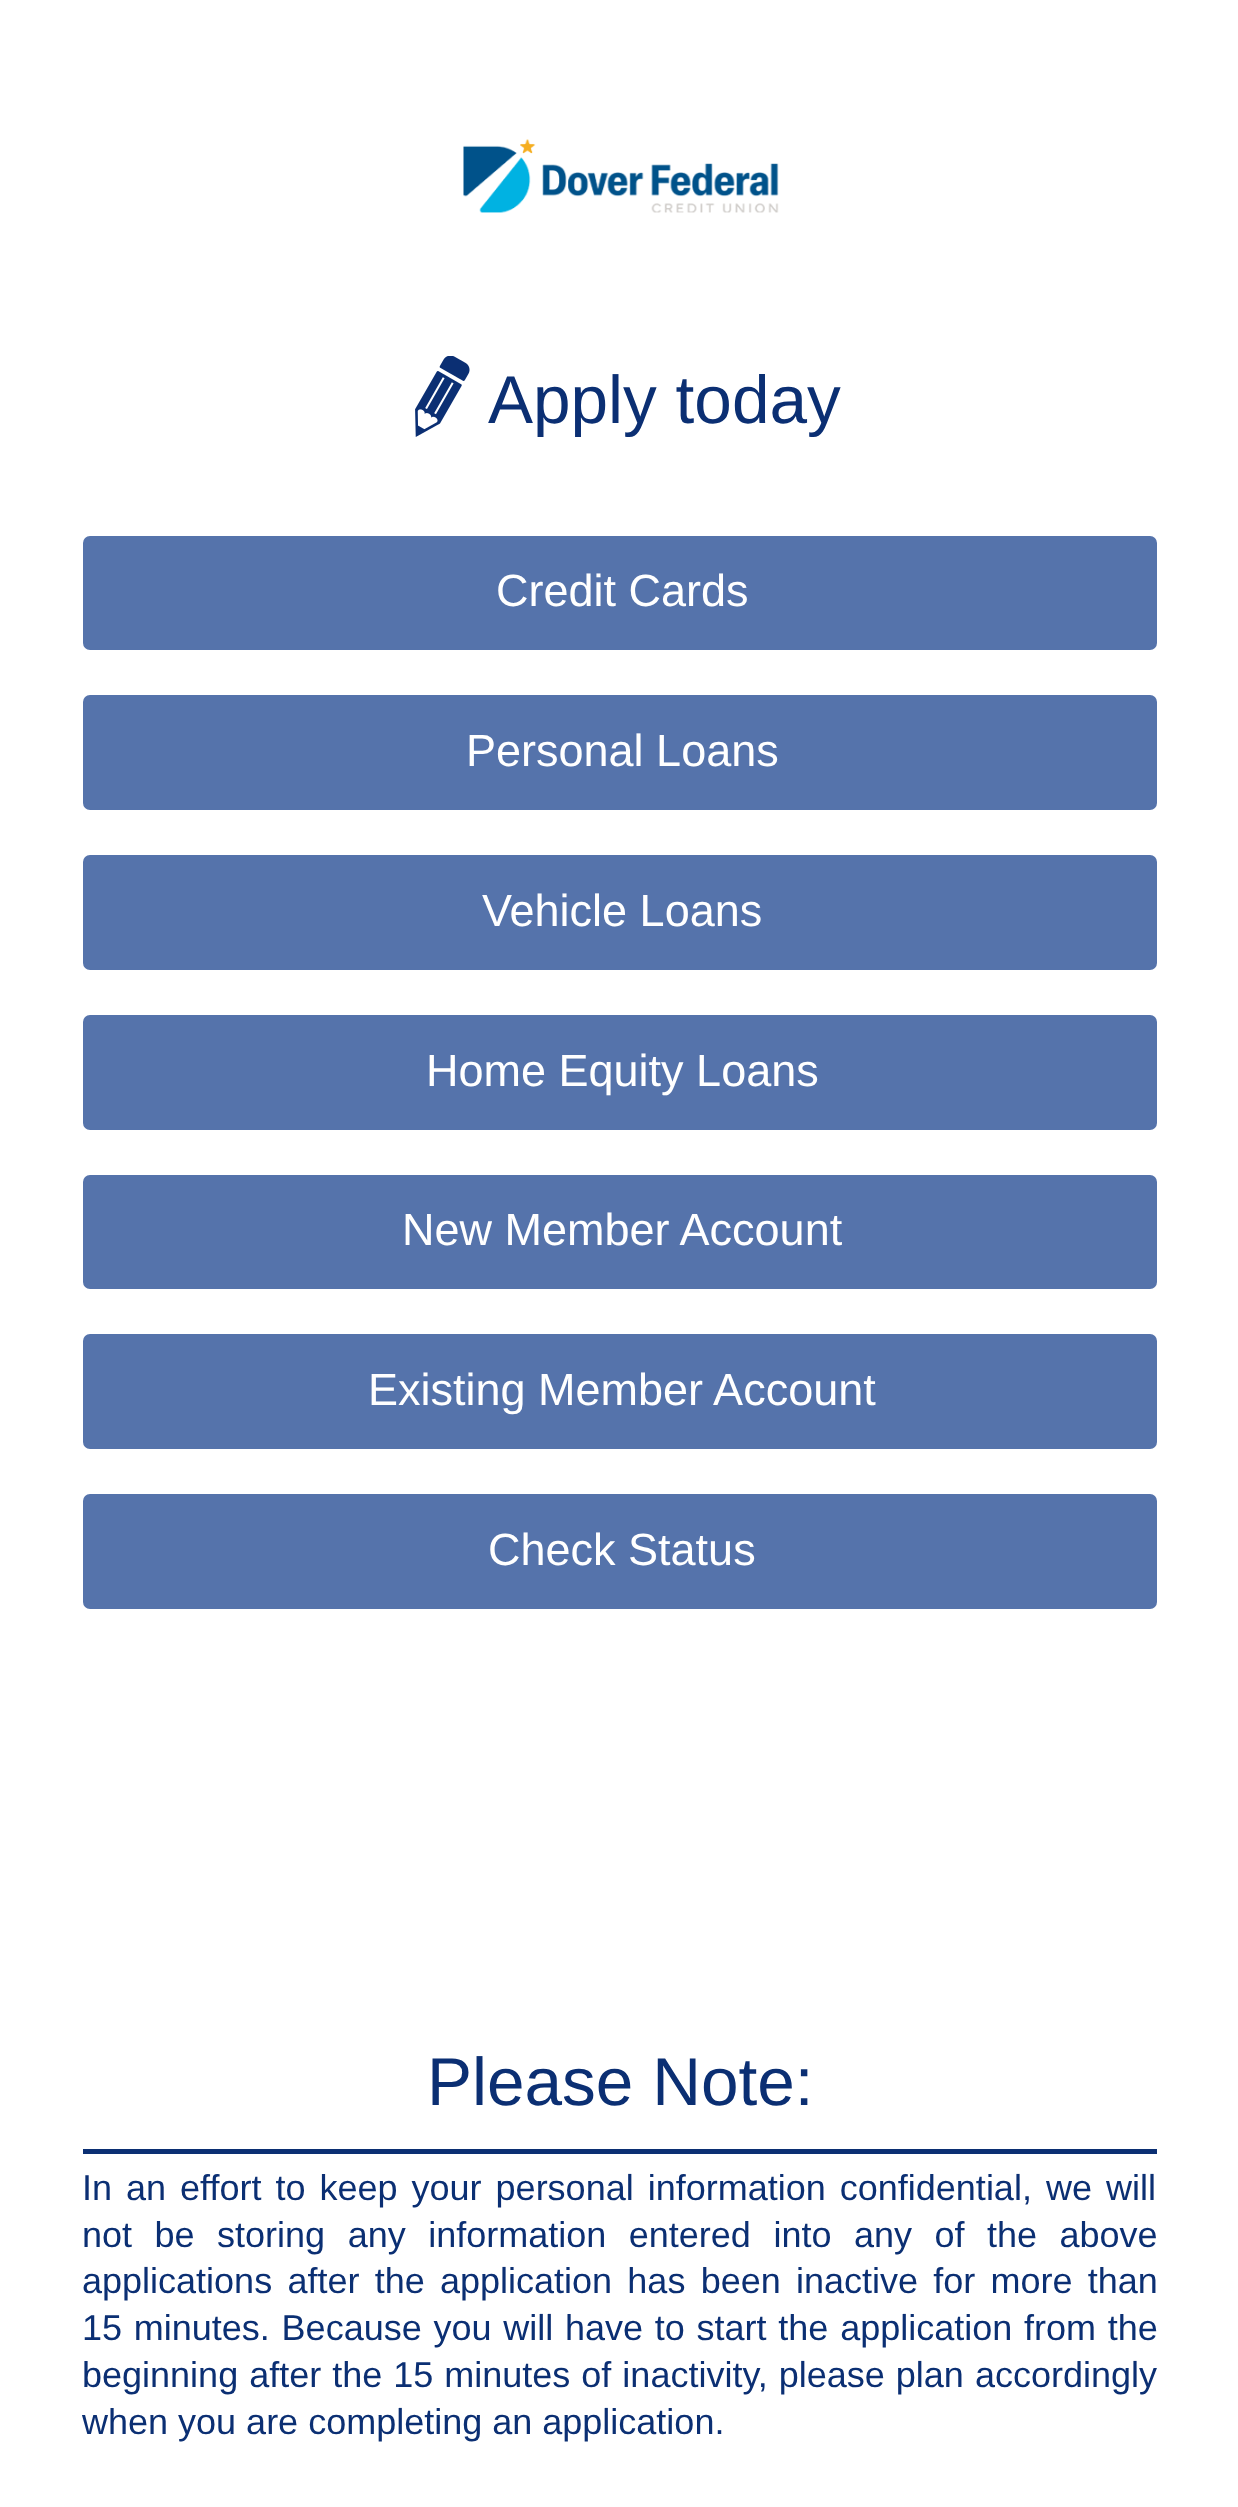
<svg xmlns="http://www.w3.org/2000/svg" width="1238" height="2507">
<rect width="100%" height="100%" fill="#fff"/>
<image x="463" y="139" width="316" height="74" href="media/1.png"/>
<image x="415" y="356" width="55" height="81" href="media/2.png"/>
<text x="488" y="423" style="font-family:Liberation Sans;font-size:67.5px;fill:#0b2f73">Apply today</text>
<rect x="84" y="537" width="1072" height="112" rx="6" fill="#5573ab" stroke="#5573ab" stroke-width="2"/>
<text x="496" y="606" style="font-family:Liberation Sans;font-size:45px;fill:#fff">Credit Cards</text>
<rect x="84" y="696" width="1072" height="113" rx="6" fill="#5573ab" stroke="#5573ab" stroke-width="2"/>
<text x="466" y="766" style="font-family:Liberation Sans;font-size:45px;fill:#fff">Personal Loans</text>
<rect x="84" y="856" width="1072" height="113" rx="6" fill="#5573ab" stroke="#5573ab" stroke-width="2"/>
<text x="482" y="926" style="font-family:Liberation Sans;font-size:45px;fill:#fff">Vehicle Loans</text>
<rect x="84" y="1016" width="1072" height="113" rx="6" fill="#5573ab" stroke="#5573ab" stroke-width="2"/>
<text x="426" y="1086" style="font-family:Liberation Sans;font-size:45px;fill:#fff">Home Equity Loans</text>
<rect x="84" y="1176" width="1072" height="112" rx="6" fill="#5573ab" stroke="#5573ab" stroke-width="2"/>
<text x="402" y="1245" style="font-family:Liberation Sans;font-size:45px;fill:#fff">New Member Account</text>
<rect x="84" y="1335" width="1072" height="113" rx="6" fill="#5573ab" stroke="#5573ab" stroke-width="2"/>
<text x="368" y="1405" style="font-family:Liberation Sans;font-size:45px;fill:#fff">Existing Member Account</text>
<rect x="84" y="1495" width="1072" height="113" rx="6" fill="#5573ab" stroke="#5573ab" stroke-width="2"/>
<text x="488" y="1565" style="font-family:Liberation Sans;font-size:45px;fill:#fff">Check Status</text>
<rect x="83" y="2149" width="1074" height="5" fill="#0b2f73"/>
<text x="427" y="2105" style="font-family:Liberation Sans;font-size:67.5px;fill:#0b2f73">Please Note:</text>
<text x="82" y="2200" word-spacing="4" style="font-family:Liberation Sans;font-size:36px;fill:#0b2f73">In an effort to keep your personal information confidential, we will</text>
<text x="82" y="2247" word-spacing="12.5" style="font-family:Liberation Sans;font-size:36px;fill:#0b2f73">not be storing any information entered into any of the above</text>
<text x="82" y="2293" word-spacing="5.25" style="font-family:Liberation Sans;font-size:36px;fill:#0b2f73">applications after the application has been inactive for more than</text>
<text x="82" y="2340" word-spacing="1.75" style="font-family:Liberation Sans;font-size:36px;fill:#0b2f73">15 minutes. Because you will have to start the application from the</text>
<text x="82" y="2387" word-spacing="1" style="font-family:Liberation Sans;font-size:36px;fill:#0b2f73">beginning after the 15 minutes of inactivity, please plan accordingly</text>
<text x="82" y="2434" style="font-family:Liberation Sans;font-size:36px;fill:#0b2f73">when you are completing an application.</text>
</svg>
